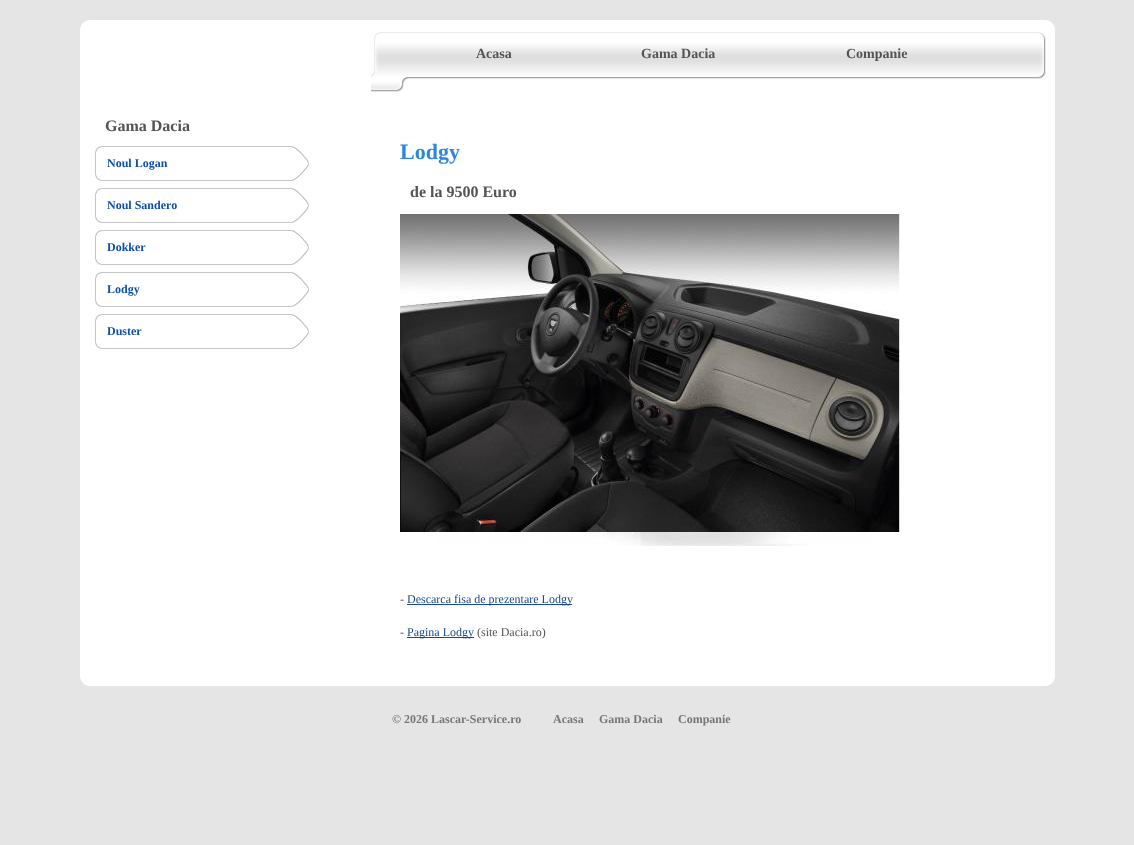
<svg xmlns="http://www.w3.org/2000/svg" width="1134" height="845">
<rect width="100%" height="100%" fill="#e5e5e5"/>
<path d="M90 20h955c5.5 0 10 4.5 10 10v63h-975v-63c0-5.5 4.5-10 10-10z" fill="#fff"/>
<image x="371" y="32" width="675" height="60" href="media/1.png"/>
<text x="476" y="58" style="font-family:Liberation Serif;font-size:14px;font-weight:bold;fill:#545454">Acasa</text>
<text x="641" y="58" style="font-family:Liberation Serif;font-size:14px;font-weight:bold;fill:#545454">Gama Dacia</text>
<text x="846" y="58" style="font-family:Liberation Serif;font-size:14px;font-weight:bold;fill:#545454">Companie</text>
<path d="M80 93h975v583c0 5.5-4.5 10-10 10h-955c-5.5 0-10-4.5-10-10z" fill="#fff"/>
<text x="105" y="131" style="font-family:Liberation Serif;font-size:16px;font-weight:bold;fill:#545454">Gama Dacia</text>
<image x="95" y="146" width="214" height="35" href="media/2.png"/>
<text x="107" y="167" style="font-family:Liberation Serif;font-size:12px;font-weight:bold;fill:#0e4fa9">Noul Logan</text>
<image x="95" y="188" width="214" height="35" href="media/2.png"/>
<text x="107" y="209" style="font-family:Liberation Serif;font-size:12px;font-weight:bold;fill:#0e4fa9">Noul Sandero</text>
<image x="95" y="230" width="214" height="35" href="media/2.png"/>
<text x="107" y="251" style="font-family:Liberation Serif;font-size:12px;font-weight:bold;fill:#0e4fa9">Dokker</text>
<image x="95" y="272" width="214" height="35" href="media/2.png"/>
<text x="107" y="293" style="font-family:Liberation Serif;font-size:12px;font-weight:bold;fill:#0e4fa9">Lodgy</text>
<image x="95" y="314" width="214" height="35" href="media/2.png"/>
<text x="107" y="335" style="font-family:Liberation Serif;font-size:12px;font-weight:bold;fill:#0e4fa9">Duster</text>
<text x="400" y="159" style="font-family:Liberation Serif;font-size:22px;font-weight:bold;fill:#2e86df">Lodgy</text>
<text x="410" y="197" style="font-family:Liberation Serif;font-size:16px;font-weight:bold;fill:#545454">de la 9500 Euro</text>
<image x="400" y="214" width="500" height="318" href="media/3.png"/>
<image x="437" y="532" width="435" height="14" href="media/4.png"/>
<text x="400" y="603" style="font-family:Liberation Serif;font-size:12px;fill:#545454">-</text>
<rect x="407" y="604" width="165" height="1" fill="#194a8c"/>
<text x="407" y="603" style="font-family:Liberation Serif;font-size:12px;fill:#194a8c">Descarca fisa de prezentare Lodgy</text>
<text x="400" y="636" style="font-family:Liberation Serif;font-size:12px;fill:#545454">-</text>
<rect x="407" y="637" width="67" height="1" fill="#194a8c"/>
<text x="407" y="636" style="font-family:Liberation Serif;font-size:12px;fill:#194a8c">Pagina Lodgy</text>
<text x="477" y="636" style="font-family:Liberation Serif;font-size:12px;fill:#545454">(site Dacia.ro)</text>
<text x="392" y="723" style="font-family:Liberation Serif;font-size:12px;font-weight:bold;fill:#777">© 2026 Lascar-Service.ro</text>
<text x="553" y="723" style="font-family:Liberation Serif;font-size:12px;font-weight:bold;fill:#777">Acasa</text>
<text x="599" y="723" style="font-family:Liberation Serif;font-size:12px;font-weight:bold;fill:#777">Gama Dacia</text>
<text x="678" y="723" style="font-family:Liberation Serif;font-size:12px;font-weight:bold;fill:#777">Companie</text>
</svg>
